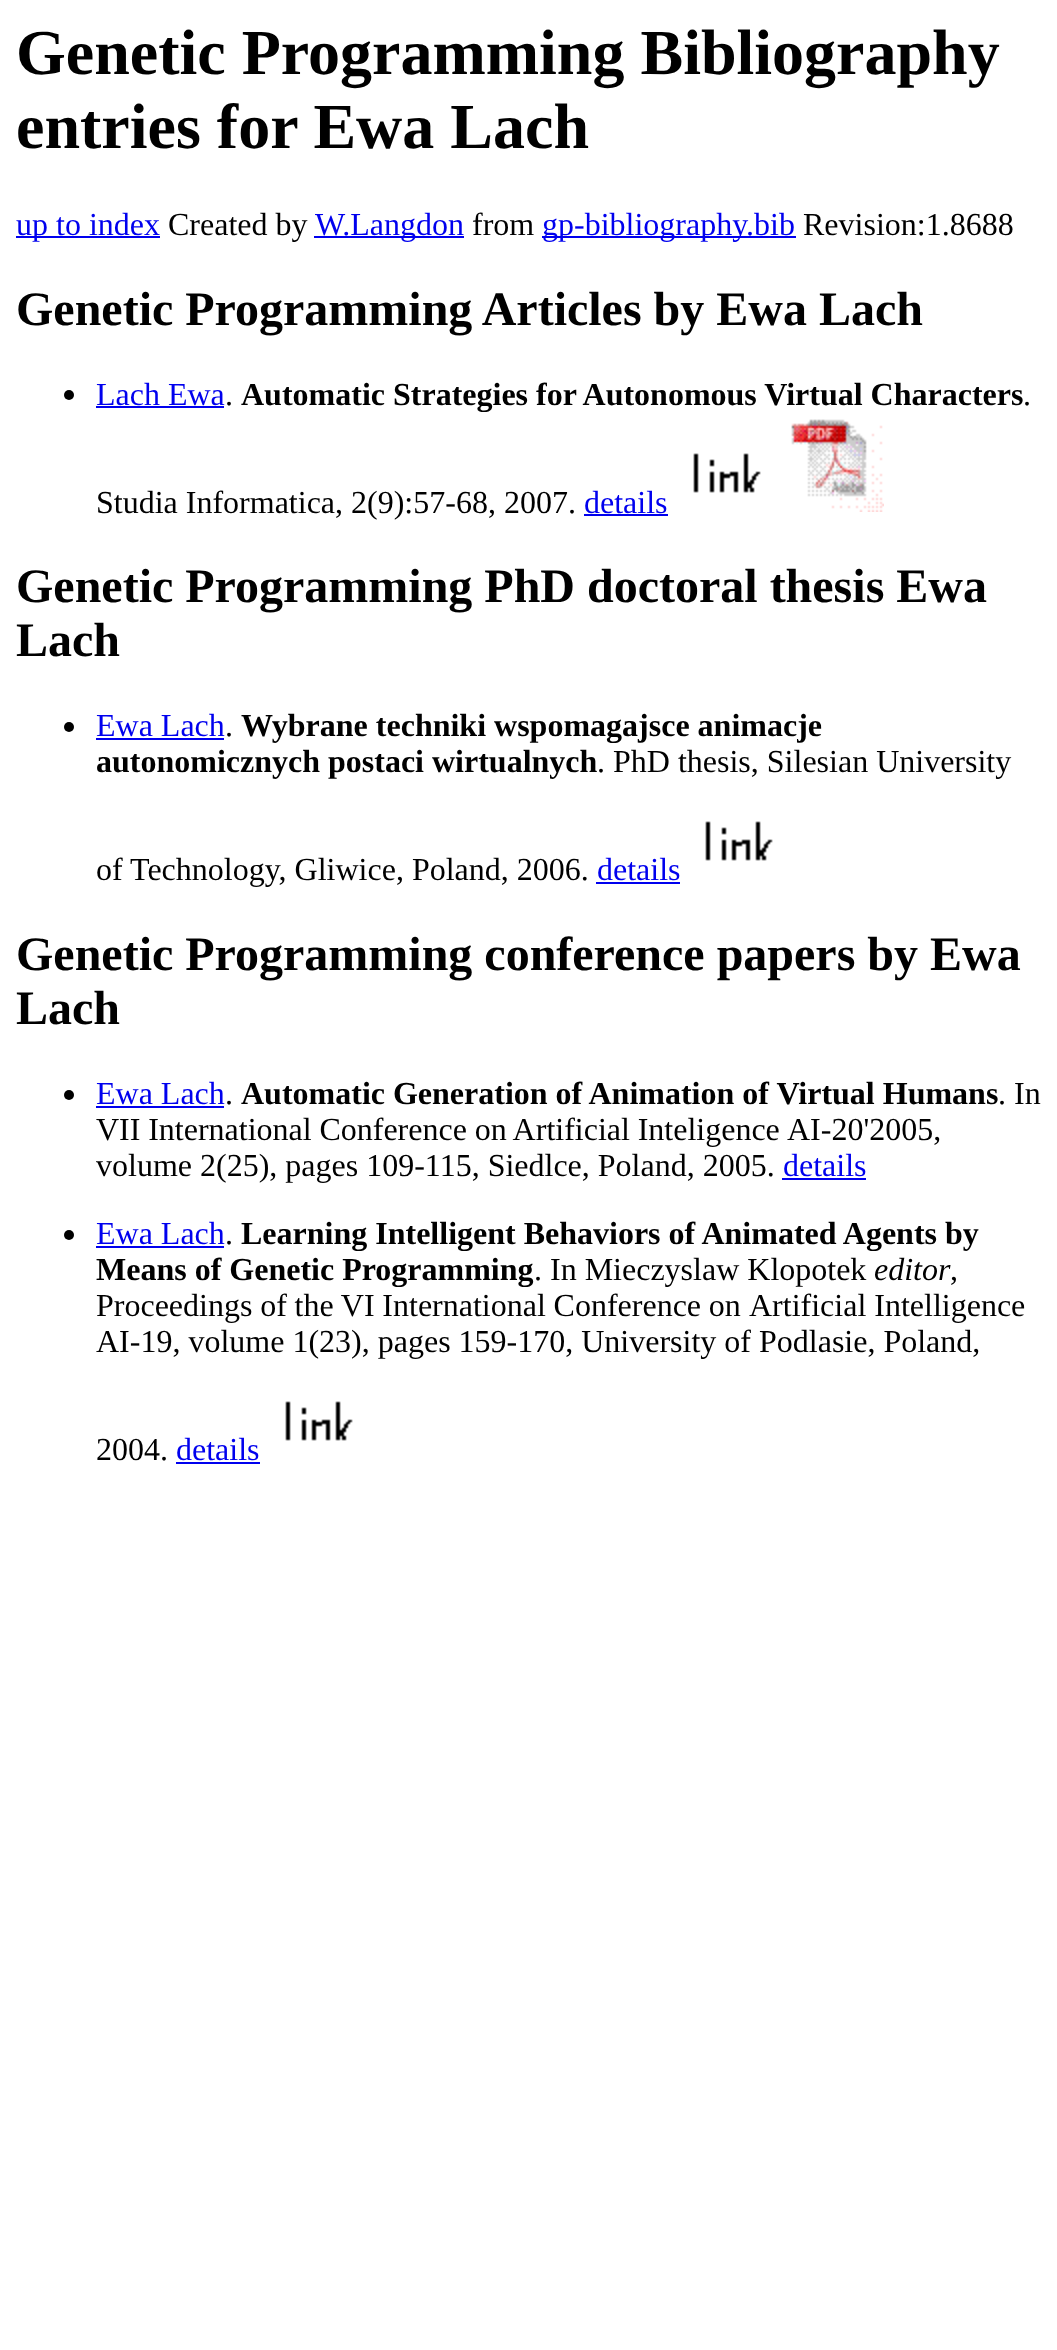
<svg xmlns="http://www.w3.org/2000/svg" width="1057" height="2350">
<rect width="100%" height="100%" fill="#fff"/>
<text x="16" y="74" style="font-family:Liberation Serif;font-size:64px;font-weight:bold;fill:#000">Genetic Programming Bibliography</text>
<text x="16" y="148" style="font-family:Liberation Serif;font-size:64px;font-weight:bold;fill:#000">entries for Ewa Lach</text>
<rect x="16" y="236" width="144" height="2" fill="#00e"/>
<text x="16" y="235" style="font-family:Liberation Serif;font-size:32px;fill:#00e">up to index</text>
<text x="168" y="235" style="font-family:Liberation Serif;font-size:32px;fill:#000">Created by</text>
<rect x="314" y="236" width="150" height="2" fill="#00e"/>
<text x="315" y="235" style="font-family:Liberation Serif;font-size:32px;fill:#00e">W.Langdon</text>
<text x="472" y="235" style="font-family:Liberation Serif;font-size:32px;fill:#000">from</text>
<rect x="542" y="236" width="254" height="2" fill="#00e"/>
<text x="542" y="235" style="font-family:Liberation Serif;font-size:32px;fill:#00e">gp-bibliography.bib</text>
<text x="803" y="235" style="font-family:Liberation Serif;font-size:32px;fill:#000">Revision:1.8688</text>
<text x="16" y="325" style="font-family:Liberation Serif;font-size:48px;font-weight:bold;fill:#000">Genetic Programming Articles by Ewa Lach</text>
<circle cx="69" cy="395" r="5" fill="#000"/>
<text x="96" y="405" style="font-family:Liberation Serif;font-size:32px;fill:#00e">Lach Ewa</text>
<rect x="96" y="406" width="128" height="2" fill="#00e"/>
<text x="241" y="405" style="font-family:Liberation Serif;font-size:32px;font-weight:bold;fill:#000">Automatic Strategies for Autonomous Virtual Characters</text>
<text x="225" y="405" style="font-family:Liberation Serif;font-size:32px;fill:#000">.</text>
<text x="1023" y="405" style="font-family:Liberation Serif;font-size:32px;fill:#000">.</text>
<image x="693" y="453" width="68" height="40" href="media/1.png"/>
<image x="791" y="419" width="93" height="93" href="media/2.png"/>
<text x="96" y="513" style="font-family:Liberation Serif;font-size:32px;fill:#000">Studia Informatica, 2(9):57-68, 2007.</text>
<text x="584" y="513" style="font-family:Liberation Serif;font-size:32px;fill:#00e">details</text>
<rect x="584" y="514" width="84" height="2" fill="#00e"/>
<text x="16" y="602" style="font-family:Liberation Serif;font-size:48px;font-weight:bold;fill:#000">Genetic Programming PhD doctoral thesis Ewa</text>
<text x="16" y="656" style="font-family:Liberation Serif;font-size:48px;font-weight:bold;fill:#000">Lach</text>
<circle cx="69" cy="727" r="5" fill="#000"/>
<text x="96" y="736" style="font-family:Liberation Serif;font-size:32px;fill:#00e">Ewa Lach</text>
<rect x="96" y="738" width="128" height="2" fill="#00e"/>
<text x="241" y="736" style="font-family:Liberation Serif;font-size:32px;font-weight:bold;fill:#000">Wybrane techniki wspomagajsce animacje</text>
<text x="225" y="736" style="font-family:Liberation Serif;font-size:32px;fill:#000">.</text>
<text x="96" y="772" style="font-family:Liberation Serif;font-size:32px;font-weight:bold;fill:#000">autonomicznych postaci wirtualnych</text>
<text x="597" y="772" style="font-family:Liberation Serif;font-size:32px;fill:#000">. PhD thesis, Silesian University</text>
<image x="705" y="821" width="68" height="40" href="media/1.png"/>
<text x="96" y="880" style="font-family:Liberation Serif;font-size:32px;fill:#000">of Technology, Gliwice, Poland, 2006.</text>
<text x="597" y="880" style="font-family:Liberation Serif;font-size:32px;fill:#00e">details</text>
<rect x="596" y="882" width="84" height="2" fill="#00e"/>
<text x="16" y="970" style="font-family:Liberation Serif;font-size:48px;font-weight:bold;fill:#000">Genetic Programming conference papers by Ewa</text>
<text x="16" y="1024" style="font-family:Liberation Serif;font-size:48px;font-weight:bold;fill:#000">Lach</text>
<circle cx="69" cy="1095" r="5" fill="#000"/>
<text x="96" y="1104" style="font-family:Liberation Serif;font-size:32px;fill:#00e">Ewa Lach</text>
<rect x="96" y="1106" width="128" height="2" fill="#00e"/>
<text x="241" y="1104" style="font-family:Liberation Serif;font-size:32px;font-weight:bold;fill:#000">Automatic Generation of Animation of Virtual Humans</text>
<text x="998" y="1104" style="font-family:Liberation Serif;font-size:32px;fill:#000">. In</text>
<text x="225" y="1104" style="font-family:Liberation Serif;font-size:32px;fill:#000">.</text>
<text x="96" y="1140" word-spacing="-0.25" style="font-family:Liberation Serif;font-size:32px;fill:#000">VII International Conference on Artificial Inteligence</text>
<text x="787" y="1140" style="font-family:Liberation Serif;font-size:32px;fill:#000">AI-20'2005,</text>
<text x="96" y="1176" style="font-family:Liberation Serif;font-size:32px;fill:#000">volume 2(25), pages 109-115, Siedlce, Poland, 2005.</text>
<text x="783" y="1176" style="font-family:Liberation Serif;font-size:32px;fill:#00e">details</text>
<rect x="782" y="1178" width="84" height="2" fill="#00e"/>
<circle cx="69" cy="1235" r="5" fill="#000"/>
<text x="96" y="1244" style="font-family:Liberation Serif;font-size:32px;fill:#00e">Ewa Lach</text>
<rect x="96" y="1246" width="128" height="2" fill="#00e"/>
<text x="241" y="1244" style="font-family:Liberation Serif;font-size:32px;font-weight:bold;fill:#000">Learning Intelligent Behaviors of Animated Agents by</text>
<text x="225" y="1244" style="font-family:Liberation Serif;font-size:32px;fill:#000">.</text>
<text x="96" y="1280" style="font-family:Liberation Serif;font-size:32px;font-weight:bold;fill:#000">Means of Genetic Programming</text>
<text x="534" y="1280" style="font-family:Liberation Serif;font-size:32px;fill:#000">. In Mieczyslaw Klopotek</text>
<text x="874" y="1280" style="font-family:Liberation Serif;font-size:32px;font-style:italic;fill:#000">editor</text>
<text x="950" y="1280" style="font-family:Liberation Serif;font-size:32px;fill:#000">,</text>
<text x="96" y="1316" word-spacing="-0.25" style="font-family:Liberation Serif;font-size:32px;fill:#000">Proceedings of the VI International Conference on</text>
<text x="749" y="1316" style="font-family:Liberation Serif;font-size:32px;fill:#000">Artificial Intelligence</text>
<text x="96" y="1352" style="font-family:Liberation Serif;font-size:32px;fill:#000">AI-19, volume 1(23), pages 159-170, University of Podlasie, Poland,</text>
<image x="285" y="1401" width="68" height="40" href="media/1.png"/>
<text x="96" y="1460" style="font-family:Liberation Serif;font-size:32px;fill:#000">2004.</text>
<text x="176" y="1460" style="font-family:Liberation Serif;font-size:32px;fill:#00e">details</text>
<rect x="176" y="1462" width="84" height="2" fill="#00e"/>
</svg>
